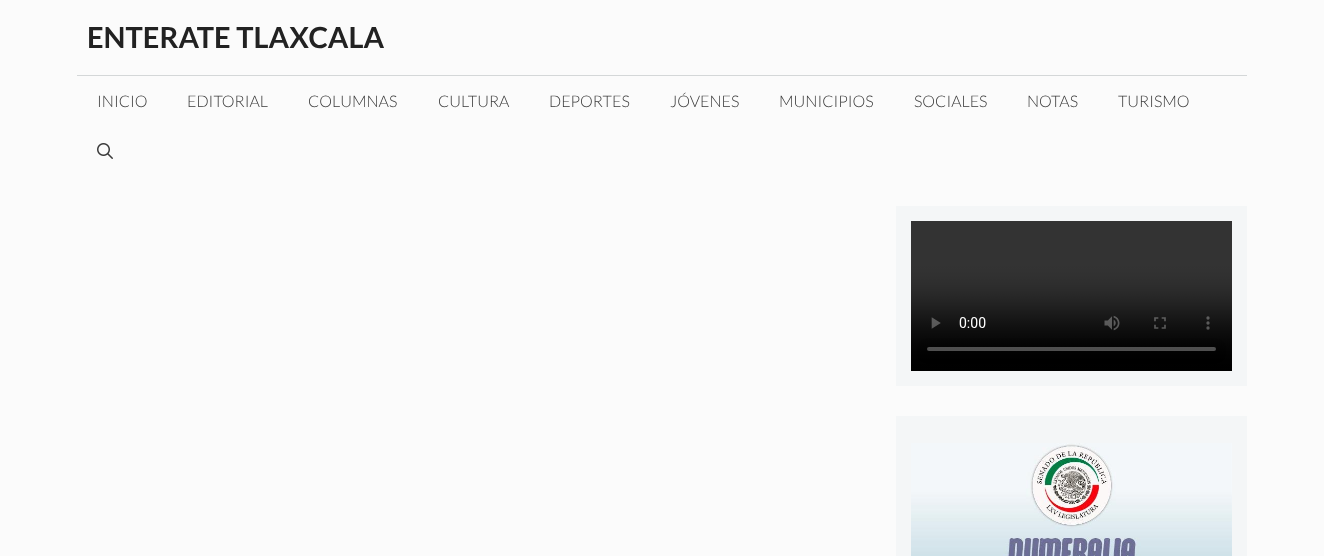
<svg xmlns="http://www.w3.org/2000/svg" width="1324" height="556">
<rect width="100%" height="100%" fill="#fbfbfb"/>
<text x="87" y="48" style="font-family:Lato;font-size:29px;font-weight:bold;fill:#222">ENTERATE TLAXCALA</text>
<rect x="77" y="75" width="1170" height="1" fill="#d4d7d8"/>
<text x="97" y="107" style="font-family:Lato;font-size:16px;font-weight:300;fill:#3a3a3a">INICIO</text>
<text x="187" y="107" style="font-family:Lato;font-size:16px;font-weight:300;fill:#3a3a3a">EDITORIAL</text>
<text x="308" y="107" style="font-family:Lato;font-size:16px;font-weight:300;fill:#3a3a3a">COLUMNAS</text>
<text x="438" y="107" style="font-family:Lato;font-size:16px;font-weight:300;fill:#3a3a3a">CULTURA</text>
<text x="549" y="107" style="font-family:Lato;font-size:16px;font-weight:300;fill:#3a3a3a">DEPORTES</text>
<text x="670" y="107" style="font-family:Lato;font-size:16px;font-weight:300;fill:#3a3a3a">JÓVENES</text>
<text x="779" y="107" style="font-family:Lato;font-size:16px;font-weight:300;fill:#3a3a3a">MUNICIPIOS</text>
<text x="914" y="107" style="font-family:Lato;font-size:16px;font-weight:300;fill:#3a3a3a">SOCIALES</text>
<text x="1027" y="107" style="font-family:Lato;font-size:16px;font-weight:300;fill:#3a3a3a">NOTAS</text>
<text x="1118" y="107" style="font-family:Lato;font-size:16px;font-weight:300;fill:#3a3a3a">TURISMO</text>
<image x="97" y="143" width="16" height="16" href="media/1.png"/>
<rect x="896" y="206" width="351" height="180" fill="#f4f6f7"/>
<image x="911" y="221" width="321" height="150" href="media/2.png"/>
<rect x="896" y="416" width="351" height="140" fill="#f4f6f7"/>
<image x="911" y="443" width="321" height="113" href="media/3.png"/>
</svg>
